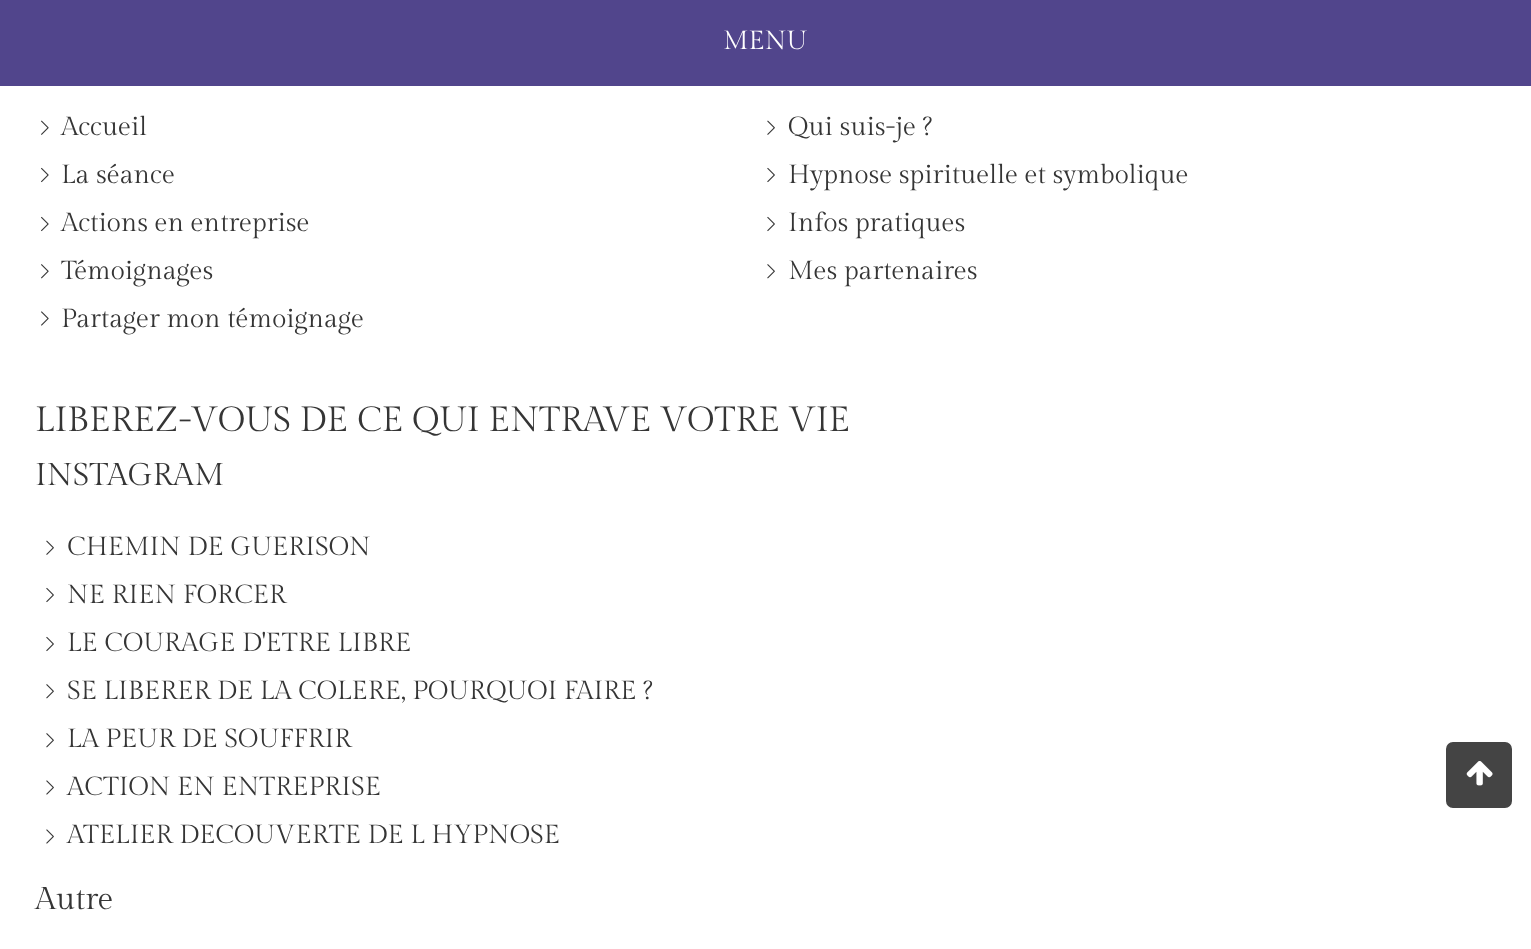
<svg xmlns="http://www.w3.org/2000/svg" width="1531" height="949">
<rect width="100%" height="100%" fill="#fff"/>
<rect width="1531" height="86" fill="#51458c"/>
<text x="723" y="49" style="font-family:Gilda Display;font-size:26.25px;fill:#fff">MENU</text>
<image x="41" y="120" width="8" height="15" href="media/1.png"/>
<text x="61" y="135" style="font-family:Gilda Display;font-size:26.25px;fill:#353535">Accueil</text>
<image x="767" y="120" width="8" height="15" href="media/2.png"/>
<text x="788" y="135" style="font-family:Gilda Display;font-size:26.25px;fill:#353535">Qui suis-je ?</text>
<image x="41" y="167" width="8" height="16" href="media/3.png"/>
<text x="61" y="183" style="font-family:Gilda Display;font-size:26.25px;fill:#353535">La séance</text>
<image x="767" y="167" width="8" height="16" href="media/4.png"/>
<text x="788" y="183" style="font-family:Gilda Display;font-size:26.25px;fill:#353535">Hypnose spirituelle et symbolique</text>
<image x="41" y="216" width="8" height="16" href="media/3.png"/>
<text x="61" y="231" style="font-family:Gilda Display;font-size:26.25px;fill:#353535">Actions en entreprise</text>
<image x="767" y="216" width="8" height="16" href="media/4.png"/>
<text x="788" y="231" style="font-family:Gilda Display;font-size:26.25px;fill:#353535">Infos pratiques</text>
<image x="41" y="264" width="8" height="15" href="media/5.png"/>
<text x="61" y="279" style="font-family:Gilda Display;font-size:26.25px;fill:#353535">Témoignages</text>
<image x="767" y="264" width="8" height="15" href="media/6.png"/>
<text x="788" y="279" style="font-family:Gilda Display;font-size:26.25px;fill:#353535">Mes partenaires</text>
<image x="41" y="311" width="8" height="15" href="media/7.png"/>
<text x="61" y="327" style="font-family:Gilda Display;font-size:26.25px;fill:#353535">Partager mon témoignage</text>
<text x="35" y="431" style="font-family:Gilda Display;font-size:35px;fill:#353535">LIBEREZ-VOUS DE CE QUI ENTRAVE VOTRE VIE</text>
<text x="35" y="485" style="font-family:Gilda Display;font-size:31.5px;fill:#353535">INSTAGRAM</text>
<image x="46" y="540" width="8" height="15" href="media/2.png"/>
<text x="67" y="555" style="font-family:Gilda Display;font-size:26.25px;fill:#353535">CHEMIN DE GUERISON</text>
<image x="46" y="587" width="8" height="16" href="media/4.png"/>
<text x="67" y="603" style="font-family:Gilda Display;font-size:26.25px;fill:#353535">NE RIEN FORCER</text>
<image x="46" y="636" width="8" height="16" href="media/4.png"/>
<text x="67" y="651" style="font-family:Gilda Display;font-size:26.25px;fill:#353535">LE COURAGE D'ETRE LIBRE</text>
<image x="46" y="684" width="8" height="15" href="media/6.png"/>
<text x="67" y="699" style="font-family:Gilda Display;font-size:26.25px;fill:#353535">SE LIBERER DE LA COLERE, POURQUOI FAIRE ?</text>
<image x="46" y="733" width="8" height="15" href="media/6.png"/>
<text x="67" y="747" style="font-family:Gilda Display;font-size:26.25px;fill:#353535">LA PEUR DE SOUFFRIR</text>
<image x="46" y="780" width="8" height="15" href="media/8.png"/>
<text x="67" y="795" style="font-family:Gilda Display;font-size:26.25px;fill:#353535">ACTION EN ENTREPRISE</text>
<image x="46" y="829" width="8" height="15" href="media/8.png"/>
<text x="67" y="843" style="font-family:Gilda Display;font-size:26.25px;fill:#353535">ATELIER DECOUVERTE DE L HYPNOSE</text>
<text x="35" y="909" style="font-family:Gilda Display;font-size:31.5px;fill:#353535">Autre</text>
<rect x="1445" y="741" width="68" height="68" rx="8" fill="#444" stroke="#fff" stroke-width="2"/>
<image x="1466" y="761" width="27" height="25" href="media/9.png"/>
</svg>
